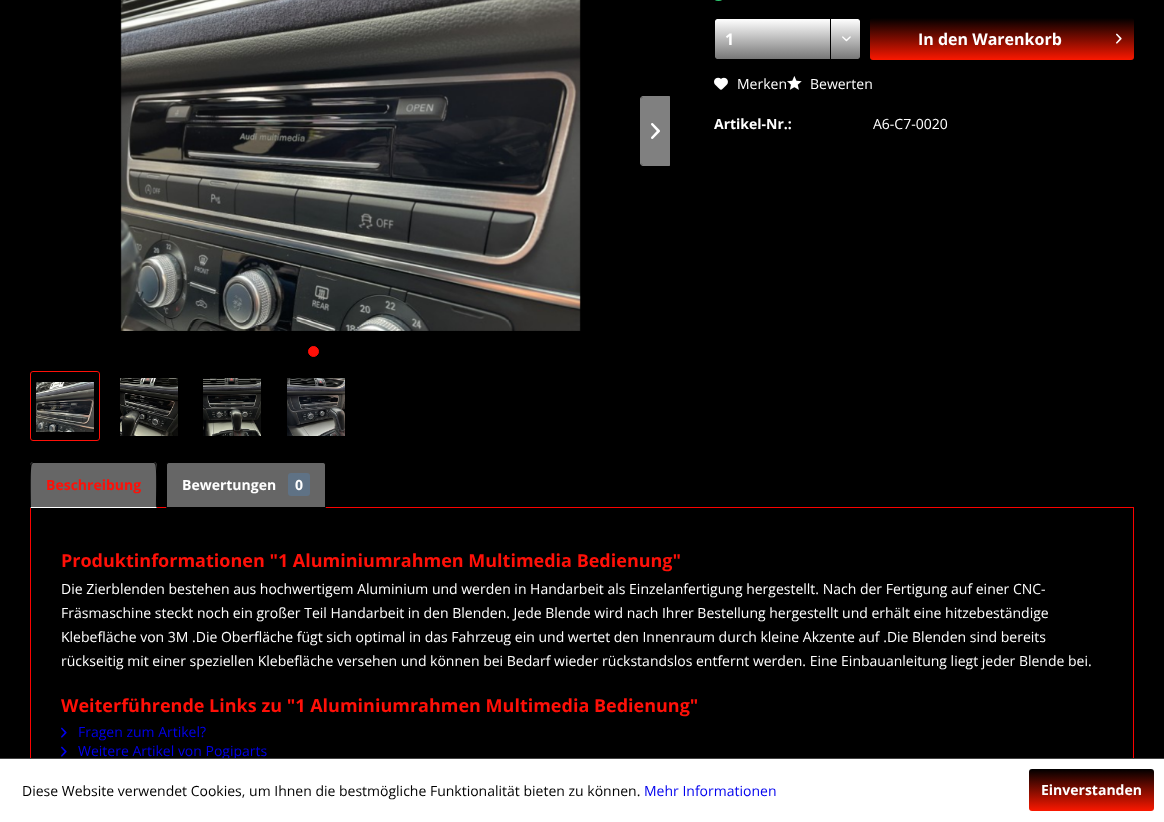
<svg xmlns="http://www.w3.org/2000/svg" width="1164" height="822">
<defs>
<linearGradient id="g1" gradientUnits="userSpaceOnUse" x1="788" y1="19" x2="788" y2="59"><stop offset="0" stop-color="#fff"/><stop offset="1" stop-color="#777"/></linearGradient>
<linearGradient id="g2" gradientUnits="userSpaceOnUse" x1="1002" y1="18" x2="1002" y2="60"><stop offset="0" stop-color="#000"/><stop offset="1" stop-color="#fb1800"/></linearGradient>
<linearGradient id="g3" gradientUnits="userSpaceOnUse" x1="1092" y1="769" x2="1092" y2="811"><stop offset="0" stop-color="#000"/><stop offset="1" stop-color="#fb1800"/></linearGradient>
</defs>
<rect width="100%" height="100%" fill="#000"/>
<image x="120" y="0" width="461" height="331" href="media/1.png"/>
<path d="M643 97h26v68h-26c-1 0-2-1-2-2v-64c0-1 1-2 2-2z" fill="#808080"/>
<path d="M643 96.5h26.5v69h-26.5c-1.5 0-2.5-1-2.5-2.5v-64c0-1.5 1-2.5 2.5-2.5z" fill="none" stroke="#ffffff80"/>
<image x="651" y="123" width="9" height="16" href="media/2.png"/>
<circle cx="313.5" cy="351.5" r="5" fill="#ff1008" stroke="#ff1008"/>
<rect x="30.5" y="371.5" width="69" height="69" rx="2.5" fill="none" stroke="#ff1008"/>
<image x="36" y="382" width="58" height="50" href="media/3.png"/>
<image x="120" y="378" width="58" height="58" href="media/4.png"/>
<image x="203" y="378" width="58" height="58" href="media/5.png"/>
<image x="287" y="378" width="58" height="58" href="media/6.png"/>
<rect x="714" y="-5" width="9" height="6" rx="4.5" fill="#2ecc71"/>
<rect x="715" y="19" width="145" height="40" rx="2" fill="url(#g1)"/>
<rect x="714.5" y="18.5" width="146" height="41" rx="2.5" fill="none" stroke="#000"/>
<text x="725" y="45" style="font-family:Open Sans;font-size:16px;font-weight:bold;fill:#fff">1</text>
<rect x="830" y="19" width="1" height="40" fill="#000"/>
<image x="842" y="36" width="9" height="6" href="media/7.png"/>
<rect x="870" y="18" width="264" height="42" rx="3" fill="url(#g2)"/>
<text x="918" y="45" style="font-family:Open Sans;font-size:16px;font-weight:bold;fill:#fff">In den Warenkorb</text>
<image x="1116" y="33" width="6" height="11" href="media/8.png"/>
<image x="714" y="77" width="14" height="13" href="media/9.png"/>
<text x="737" y="89" style="font-family:Open Sans;font-size:14px;fill:#fff">Merken</text>
<image x="787" y="76" width="15" height="14" href="media/10.png"/>
<text x="810" y="89" style="font-family:Open Sans;font-size:14px;fill:#fff">Bewerten</text>
<text x="714" y="129" style="font-family:Open Sans;font-size:14px;font-weight:bold;fill:#fff">Artikel-Nr.:</text>
<text x="873" y="129" style="font-family:Open Sans;font-size:14px;fill:#fff">A6-C7-0020</text>
<rect x="30.5" y="507.5" width="1103" height="283" fill="none" stroke="#fa0200"/>
<path d="M33 462h121c1.5 0 3 1.5 3 3v43h-127v-43c0-1.5 1.5-3 3-3z" fill="#666"/>
<path d="M33 462l-2 1l1 1l1-1h121l1 1l1-1l-2-1z" fill="#000"/>
<path d="M157 508c0-5 1-43-1-45l-1 1c2 1 1 38 1 43z" fill="#000"/>
<path d="M157 508l-1-1h-125l-1 1z" fill="#fff"/>
<path d="M30 508l1-1c0-5-1-42 1-43l-1-1l-1 2z" fill="#000"/>
<text x="46" y="490" style="font-family:Open Sans;font-size:14px;font-weight:bold;fill:#ff1008">Beschreibung</text>
<path d="M169 462.5h154c1.5 0 2.5 1 2.5 2.5v42.5h-159v-42.5c0-1.5 1-2.5 2.5-2.5z" fill="#666" stroke="#000"/>
<text x="182" y="490" style="font-family:Open Sans;font-size:14px;font-weight:bold;fill:#fff">Bewertungen</text>
<rect x="288" y="473" width="22" height="23" rx="3" fill="#5f7285"/>
<text x="295" y="490" style="font-family:Open Sans;font-size:14px;font-weight:bold;fill:#fff">0</text>
<text x="61" y="567" style="font-family:Open Sans;font-size:18px;font-weight:bold;fill:#ff1008">Produktinformationen "1 Aluminiumrahmen Multimedia Bedienung"</text>
<text x="61" y="594" style="font-family:Open Sans;font-size:14px;fill:#fff">Die Zierblenden bestehen aus hochwertigem Aluminium und werden in Handarbeit als Einzelanfertigung hergestellt. Nach der Fertigung auf einer CNC-</text>
<text x="61" y="618" style="font-family:Open Sans;font-size:14px;fill:#fff">Fräsmaschine steckt noch ein großer Teil Handarbeit in den Blenden. Jede Blende wird nach Ihrer Bestellung hergestellt und erhält eine hitzebeständige</text>
<text x="61" y="642" style="font-family:Open Sans;font-size:14px;fill:#fff">Klebefläche von 3M .Die Oberfläche fügt sich optimal in das Fahrzeug ein und wertet den Innenraum durch kleine Akzente auf .Die Blenden sind bereits</text>
<text x="61" y="666" style="font-family:Open Sans;font-size:14px;fill:#fff">rückseitig mit einer speziellen Klebefläche versehen und können bei Bedarf wieder rückstandslos entfernt werden. Eine Einbauanleitung liegt jeder Blende bei.</text>
<text x="61" y="712" style="font-family:Open Sans;font-size:18px;font-weight:bold;fill:#ff1008">Weiterführende Links zu "1 Aluminiumrahmen Multimedia Bedienung"</text>
<image x="61" y="727" width="6" height="11" href="media/11.png"/>
<text x="78" y="737" style="font-family:Open Sans;font-size:14px;fill:#00e">Fragen zum Artikel?</text>
<image x="61" y="746" width="6" height="11" href="media/11.png"/>
<text x="78" y="756" style="font-family:Open Sans;font-size:14px;fill:#00e">Weitere Artikel von Pogiparts</text>
<rect y="759" width="1164" height="63" fill="#fff"/>
<rect y="758" width="1164" height="1" fill="#444"/>
<text x="22" y="796" style="font-family:Open Sans;font-size:14px;fill:#000">Diese Website verwendet Cookies, um Ihnen die bestmögliche Funktionalität bieten zu können.</text>
<text x="644" y="796" style="font-family:Open Sans;font-size:14px;fill:#00e">Mehr Informationen</text>
<rect x="1029" y="769" width="125" height="42" rx="3" fill="url(#g3)"/>
<text x="1041" y="795" style="font-family:Open Sans;font-size:14px;font-weight:bold;fill:#fff">Einverstanden</text>
</svg>
